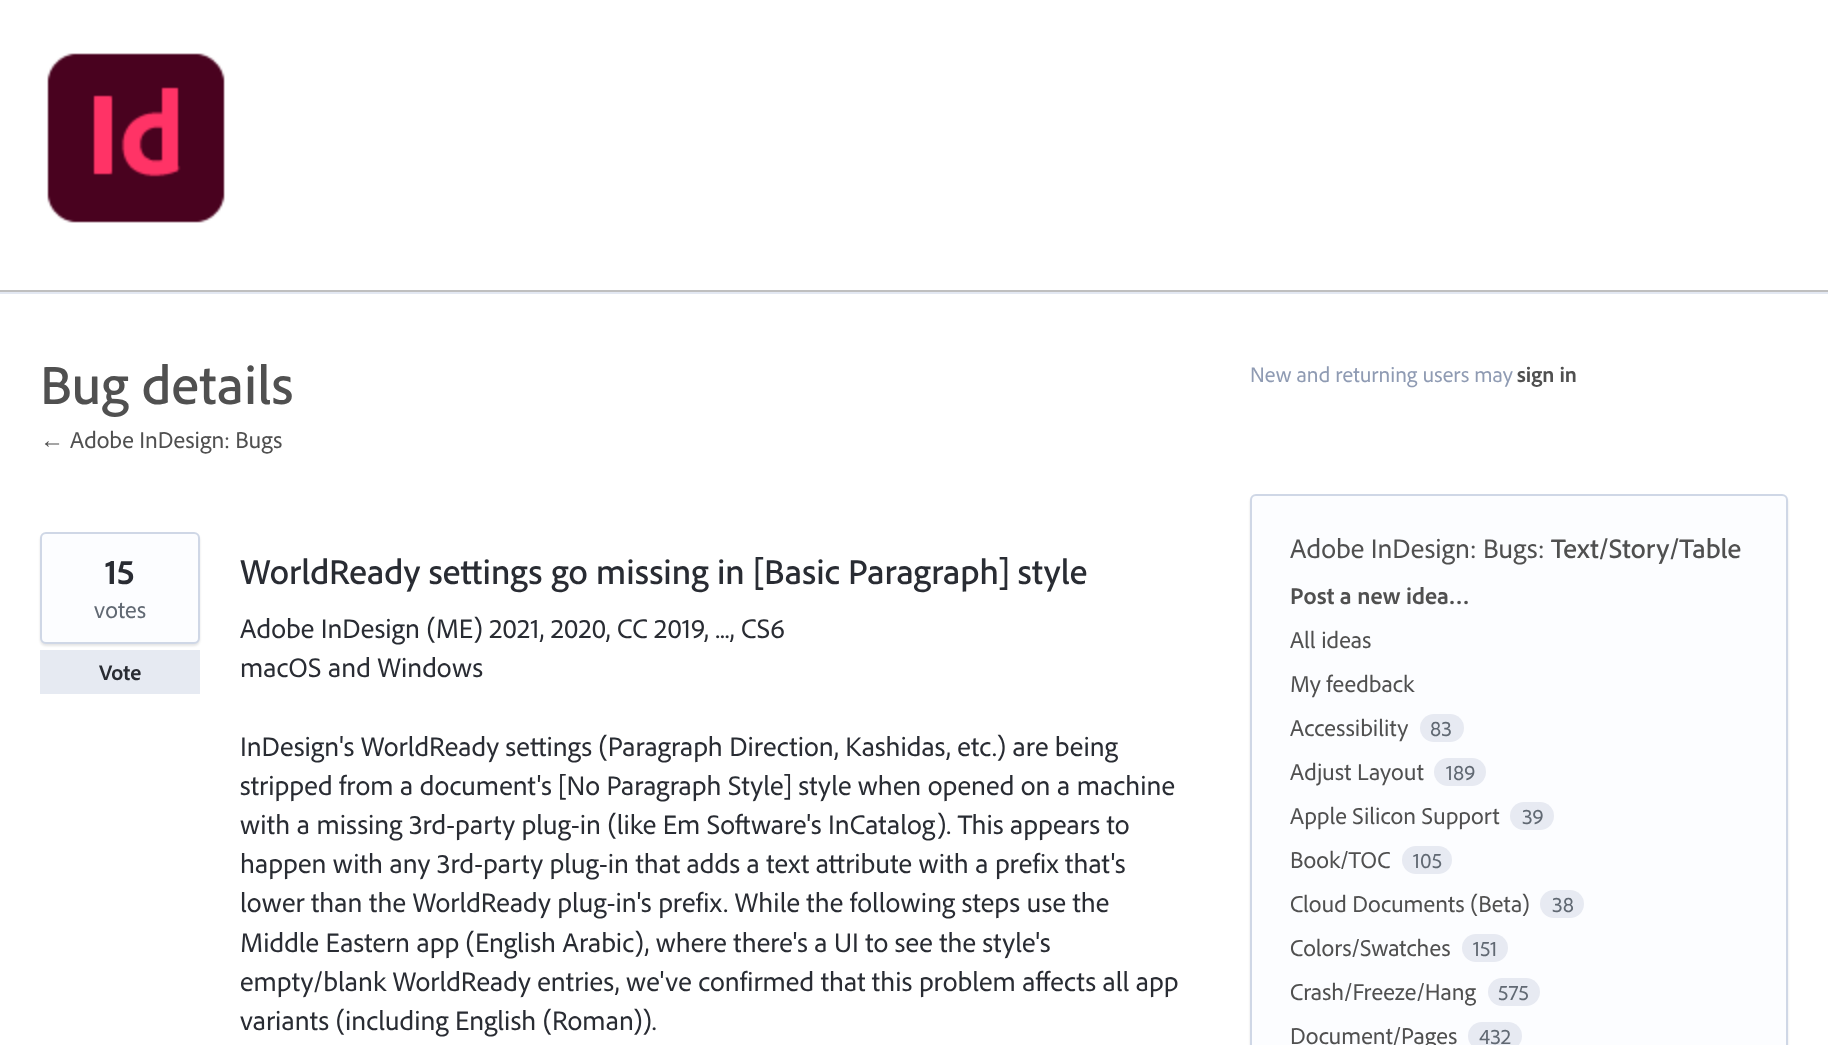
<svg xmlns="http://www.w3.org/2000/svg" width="1828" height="1045">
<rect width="100%" height="100%" fill="#fff"/>
<rect y="290" width="1828" height="2" fill="#bfbfbf"/>
<image x="47" y="53" width="178" height="170" href="media/1.png"/>
<rect y="292" width="1828" height="2" fill="#e3e8f2"/>
<text x="40" y="404" style="font-family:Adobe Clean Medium;font-size:56px;font-weight:500;fill:#505050">Bug details</text>
<text x="40" y="448" style="font-family:Liberation Sans;font-size:24px;fill:#505050">←</text>
<text x="70" y="448" style="font-family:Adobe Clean;font-size:24px;fill:#505050">Adobe InDesign: Bugs</text>
<rect x="40" y="534" width="160" height="112" rx="6" fill="#0000001a" filter="blur(1px)"/>
<rect x="41" y="533" width="158" height="110" rx="5" fill="#fcfdff" stroke="#cfd7e6" stroke-width="2"/>
<text x="105" y="584" style="font-family:Adobe Clean;font-size:36px;font-weight:bold;fill:#292c33">15</text>
<text x="94" y="618" style="font-family:Adobe Clean;font-size:24px;fill:#616973">votes</text>
<rect x="40" y="650" width="160" height="44" fill="#e6eaf2"/>
<text x="99" y="680" style="font-family:Adobe Clean;font-size:22px;font-weight:bold;fill:#292c33">Vote</text>
<text x="240" y="584" style="font-family:Adobe Clean Medium;font-size:36px;font-weight:500;fill:#292c33">WorldReady settings go missing in [Basic Paragraph] style</text>
<text x="240" y="638" style="font-family:Adobe Clean;font-size:28px;fill:#292c33">Adobe InDesign (ME) 2021, 2020, CC 2019, ..., CS6</text>
<text x="240" y="677" style="font-family:Adobe Clean;font-size:28px;fill:#292c33">macOS and Windows</text>
<text x="240" y="756" style="font-family:Adobe Clean;font-size:28px;fill:#292c33">InDesign's WorldReady settings (Paragraph Direction, Kashidas, etc.) are being</text>
<text x="240" y="795" style="font-family:Adobe Clean;font-size:28px;fill:#292c33">stripped from a document's [No Paragraph Style] style when opened on a machine</text>
<text x="240" y="834" style="font-family:Adobe Clean;font-size:28px;fill:#292c33">with a missing 3rd-party plug-in (like Em Software's InCatalog). This appears to</text>
<text x="240" y="873" style="font-family:Adobe Clean;font-size:28px;fill:#292c33">happen with any 3rd-party plug-in that adds a text attribute with a prefix that's</text>
<text x="240" y="912" style="font-family:Adobe Clean;font-size:28px;fill:#292c33">lower than the WorldReady plug-in's prefix. While the following steps use the</text>
<text x="240" y="952" style="font-family:Adobe Clean;font-size:28px;fill:#292c33">Middle Eastern app (English Arabic), where there's a UI to see the style's</text>
<text x="240" y="991" style="font-family:Adobe Clean;font-size:28px;fill:#292c33">empty/blank WorldReady entries, we've confirmed that this problem affects all app</text>
<text x="240" y="1030" style="font-family:Adobe Clean;font-size:28px;fill:#292c33">variants (including English (Roman)).</text>
<text x="1250" y="382" style="font-family:Adobe Clean;font-size:22px;fill:#8f9bb3">New and returning users may</text>
<text x="1517" y="382" style="font-family:Adobe Clean;font-size:22px;font-weight:bold;fill:#505050">sign in</text>
<rect x="1250" y="496" width="538" height="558" rx="6" fill="#0000001a" filter="blur(1px)"/>
<rect x="1251" y="495" width="536" height="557" rx="5" fill="#fcfdff" stroke="#cfd7e6" stroke-width="2"/>
<text x="1290" y="558" style="font-family:Adobe Clean;font-size:28px;fill:#505050">Adobe InDesign: Bugs</text>
<text x="1538" y="558" style="font-family:Adobe Clean;font-size:28px;fill:#505050">:</text>
<text x="1551" y="558" style="font-family:Adobe Clean Medium;font-size:28px;font-weight:500;fill:#505050">Text/Story/Table</text>
<text x="1290" y="604" style="font-family:Adobe Clean;font-size:24px;font-weight:bold;fill:#505050">Post a new idea…</text>
<text x="1290" y="648" style="font-family:Adobe Clean;font-size:24px;fill:#505050">All ideas</text>
<text x="1290" y="692" style="font-family:Adobe Clean;font-size:24px;fill:#505050">My feedback</text>
<text x="1290" y="736" style="font-family:Adobe Clean;font-size:24px;fill:#505050">Accessibility</text>
<rect x="1420" y="714" width="44" height="28" rx="14" fill="#e7eaf2"/>
<text x="1430" y="736" style="font-family:Adobe Clean;font-size:22px;fill:#616973">83</text>
<text x="1290" y="780" style="font-family:Adobe Clean;font-size:24px;fill:#505050">Adjust Layout</text>
<rect x="1434" y="758" width="52" height="28" rx="14" fill="#e7eaf2"/>
<text x="1446" y="780" style="font-family:Adobe Clean;font-size:22px;fill:#616973">189</text>
<text x="1290" y="824" style="font-family:Adobe Clean;font-size:24px;fill:#505050">Apple Silicon Support</text>
<rect x="1510" y="802" width="44" height="28" rx="14" fill="#e7eaf2"/>
<text x="1522" y="824" style="font-family:Adobe Clean;font-size:22px;fill:#616973">39</text>
<text x="1290" y="868" style="font-family:Adobe Clean;font-size:24px;fill:#505050">Book/TOC</text>
<rect x="1402" y="846" width="50" height="28" rx="14" fill="#e7eaf2"/>
<text x="1413" y="868" style="font-family:Adobe Clean;font-size:22px;fill:#616973">105</text>
<text x="1290" y="912" style="font-family:Adobe Clean;font-size:24px;fill:#505050">Cloud Documents (Beta)</text>
<rect x="1540" y="890" width="44" height="28" rx="14" fill="#e7eaf2"/>
<text x="1552" y="912" style="font-family:Adobe Clean;font-size:22px;fill:#616973">38</text>
<text x="1290" y="956" style="font-family:Adobe Clean;font-size:24px;fill:#505050">Colors/Swatches</text>
<rect x="1462" y="934" width="46" height="28" rx="14" fill="#e7eaf2"/>
<text x="1473" y="956" style="font-family:Adobe Clean;font-size:22px;fill:#616973">151</text>
<text x="1290" y="1000" style="font-family:Adobe Clean;font-size:24px;fill:#505050">Crash/Freeze/Hang</text>
<rect x="1488" y="978" width="52" height="28" rx="14" fill="#e7eaf2"/>
<text x="1498" y="1000" style="font-family:Adobe Clean;font-size:22px;fill:#616973">575</text>
<text x="1290" y="1044" style="font-family:Adobe Clean;font-size:24px;fill:#505050">Document/Pages</text>
<rect x="1468" y="1022" width="54" height="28" rx="14" fill="#e7eaf2"/>
<text x="1479" y="1044" style="font-family:Adobe Clean;font-size:22px;fill:#616973">432</text>
</svg>
